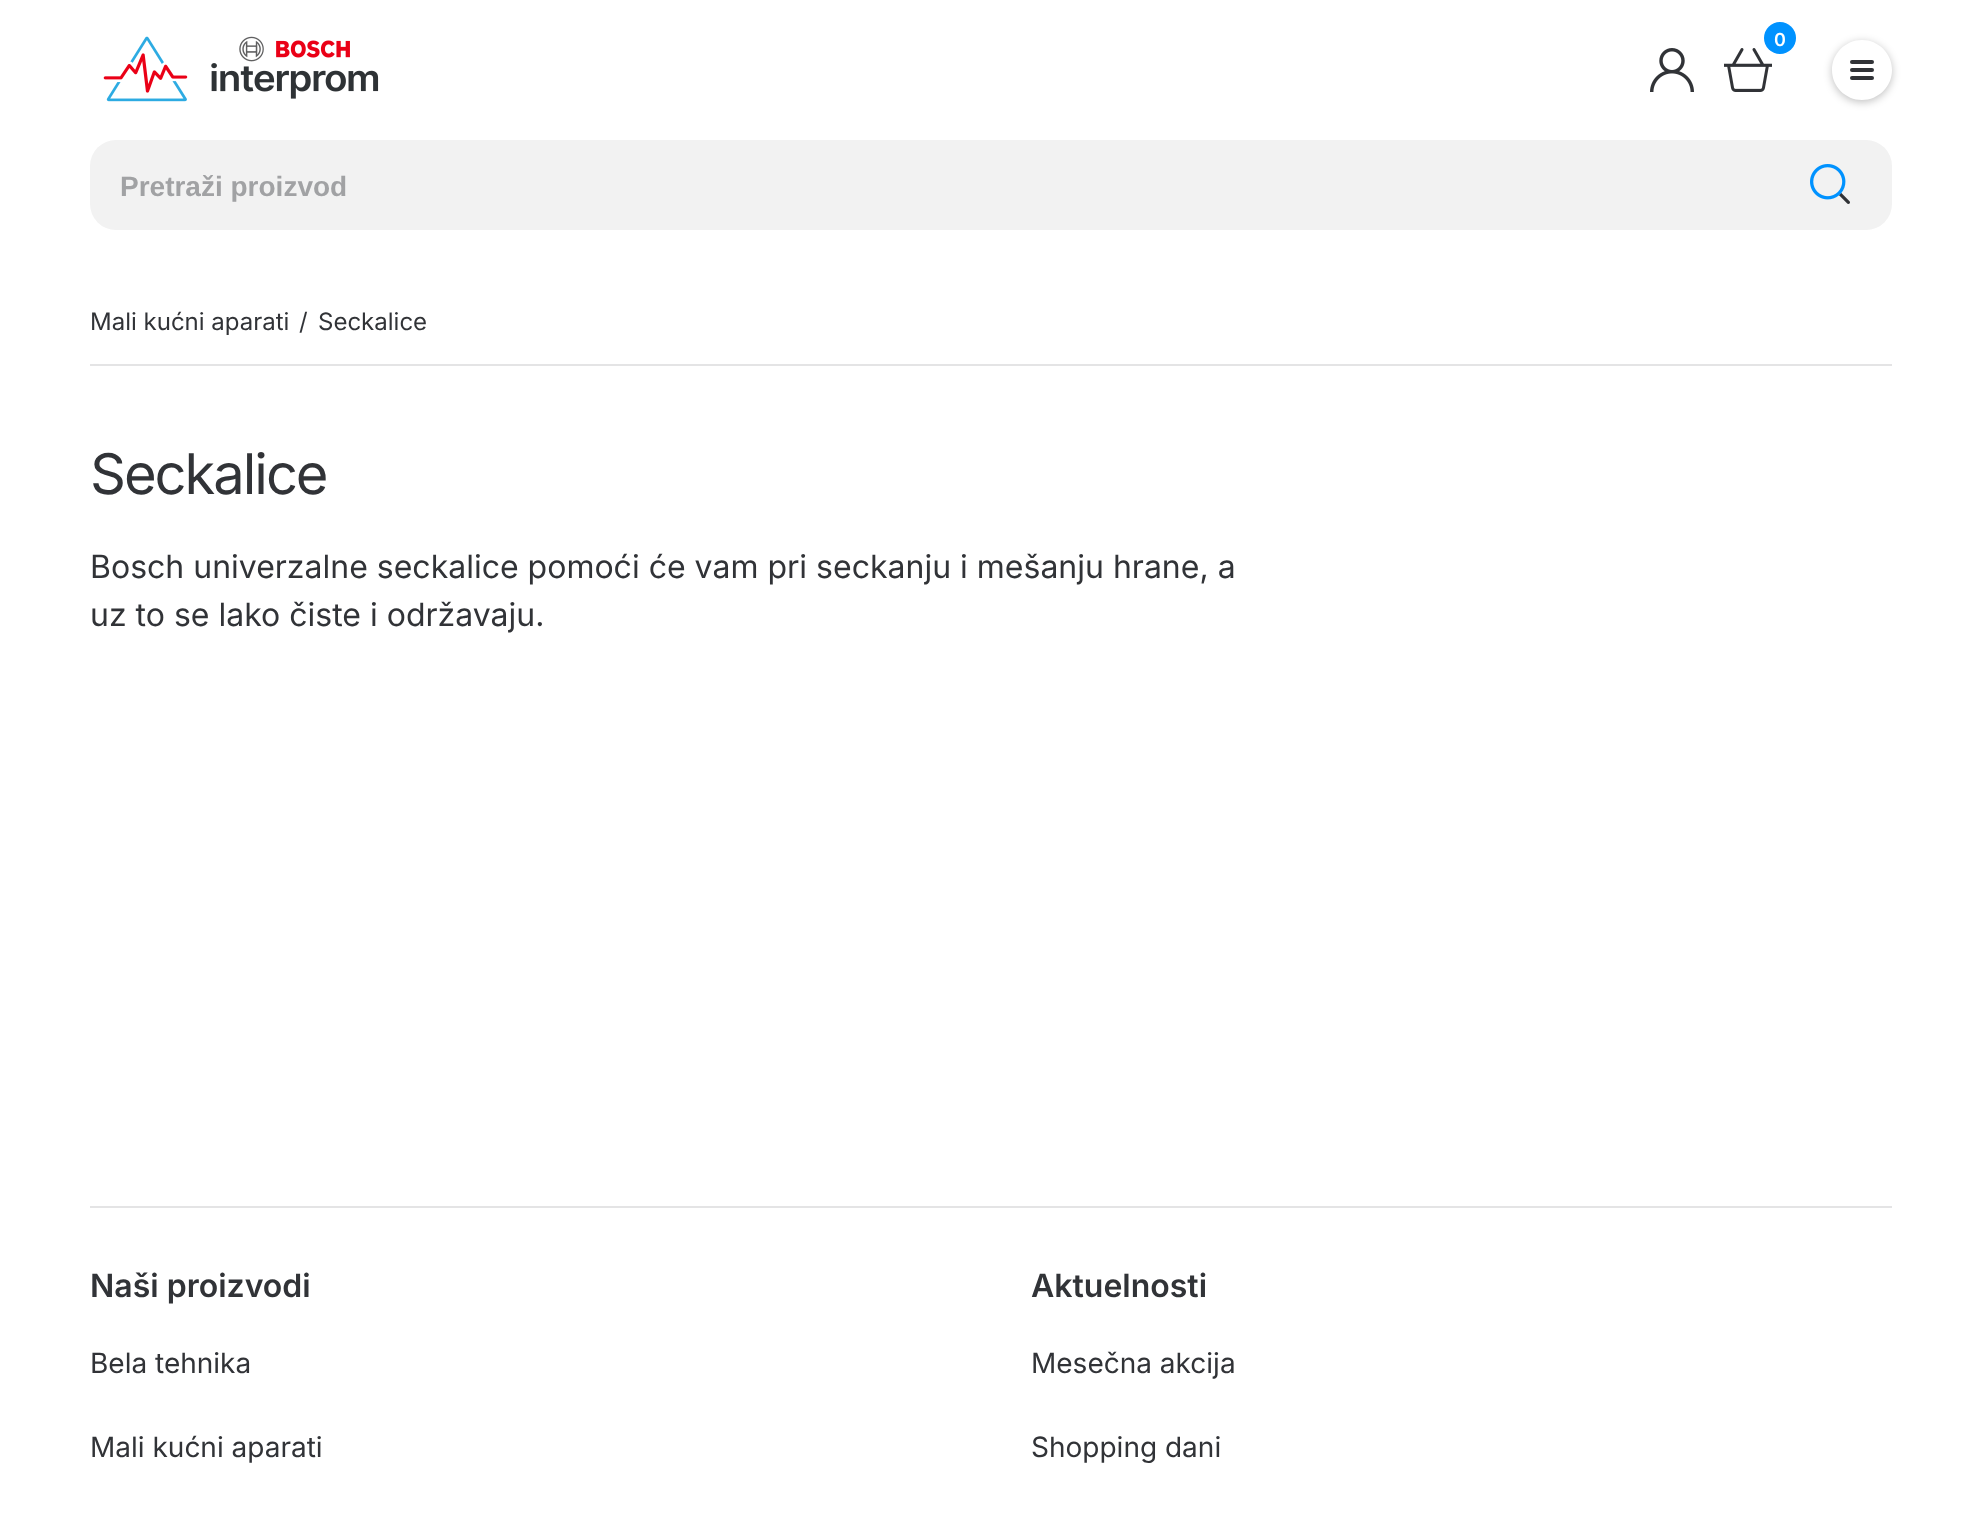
<svg xmlns="http://www.w3.org/2000/svg" width="1981" height="1517">
<defs>
<clipPath id="clip1"><path d="M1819 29h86v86h-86zm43 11c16.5 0 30 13.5 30 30c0 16.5-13.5 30-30 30c-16.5 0-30-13.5-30-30c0-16.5 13.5-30 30-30z" clip-rule="evenodd"/></clipPath>
</defs>
<rect width="100%" height="100%" fill="#fff"/>
<image x="103" y="36" width="276" height="66" href="media/1.png"/>
<image x="1724" y="48" width="48" height="44" href="media/2.png"/>
<circle cx="1780" cy="38" r="16" fill="#0092ff"/>
<text x="1774" y="46" style="font-family:Inter;font-size:18px;font-weight:600;letter-spacing:-1px;fill:#fff">0</text>
<g clip-path="url(#clip1)">
<rect x="1832" y="42" width="60" height="60" rx="30" fill="#00000040" filter="blur(4px)"/>
</g>
<rect x="1850" y="60" width="24" height="4" rx="2" fill="#313337"/>
<rect x="1850" y="68" width="24" height="4" rx="2" fill="#313337"/>
<rect x="1850" y="76" width="24" height="4" rx="2" fill="#313337"/>
<image x="1650" y="48" width="44" height="44" href="media/3.png"/>
<rect x="90" y="140" width="1802" height="90" rx="26" fill="#f2f2f2"/>
<text x="120" y="196" style="font-family:Liberation Sans;font-size:28px;font-weight:bold;fill:#a1a2a4">Pretraži proizvod</text>
<image x="1810" y="164" width="40" height="40" href="media/4.png"/>
<rect x="90" y="364" width="1802" height="2" fill="#e4e4e5"/>
<text x="90" y="330" style="font-family:Inter;font-size:24px;fill:#313337">Mali kućni aparati</text>
<text x="299" y="330" style="font-family:Inter;font-size:24px;fill:#313337">/</text>
<text x="318" y="330" style="font-family:Inter;font-size:24px;fill:#313337">Seckalice</text>
<text x="90" y="494" style="font-family:Inter;font-size:56px;letter-spacing:-2px;fill:#313337">Seckalice</text>
<text x="90" y="578" style="font-family:Inter;font-size:32px;fill:#313337">Bosch univerzalne seckalice pomoći će vam pri seckanju i mešanju hrane, a</text>
<text x="90" y="626" style="font-family:Inter;font-size:32px;fill:#313337">uz to se lako čiste i održavaju.</text>
<rect x="90" y="1206" width="1802" height="2" fill="#e4e4e5"/>
<text x="90" y="1297" style="font-family:Inter;font-size:32px;font-weight:600;fill:#313337">Naši proizvodi</text>
<text x="90" y="1373" style="font-family:Inter;font-size:28px;fill:#313337">Bela tehnika</text>
<text x="90" y="1457" style="font-family:Inter;font-size:28px;fill:#313337">Mali kućni aparati</text>
<text x="1031" y="1297" style="font-family:Inter;font-size:32px;font-weight:600;fill:#313337">Aktuelnosti</text>
<text x="1031" y="1373" style="font-family:Inter;font-size:28px;fill:#313337">Mesečna akcija</text>
<text x="1031" y="1457" style="font-family:Inter;font-size:28px;fill:#313337">Shopping dani</text>
</svg>
